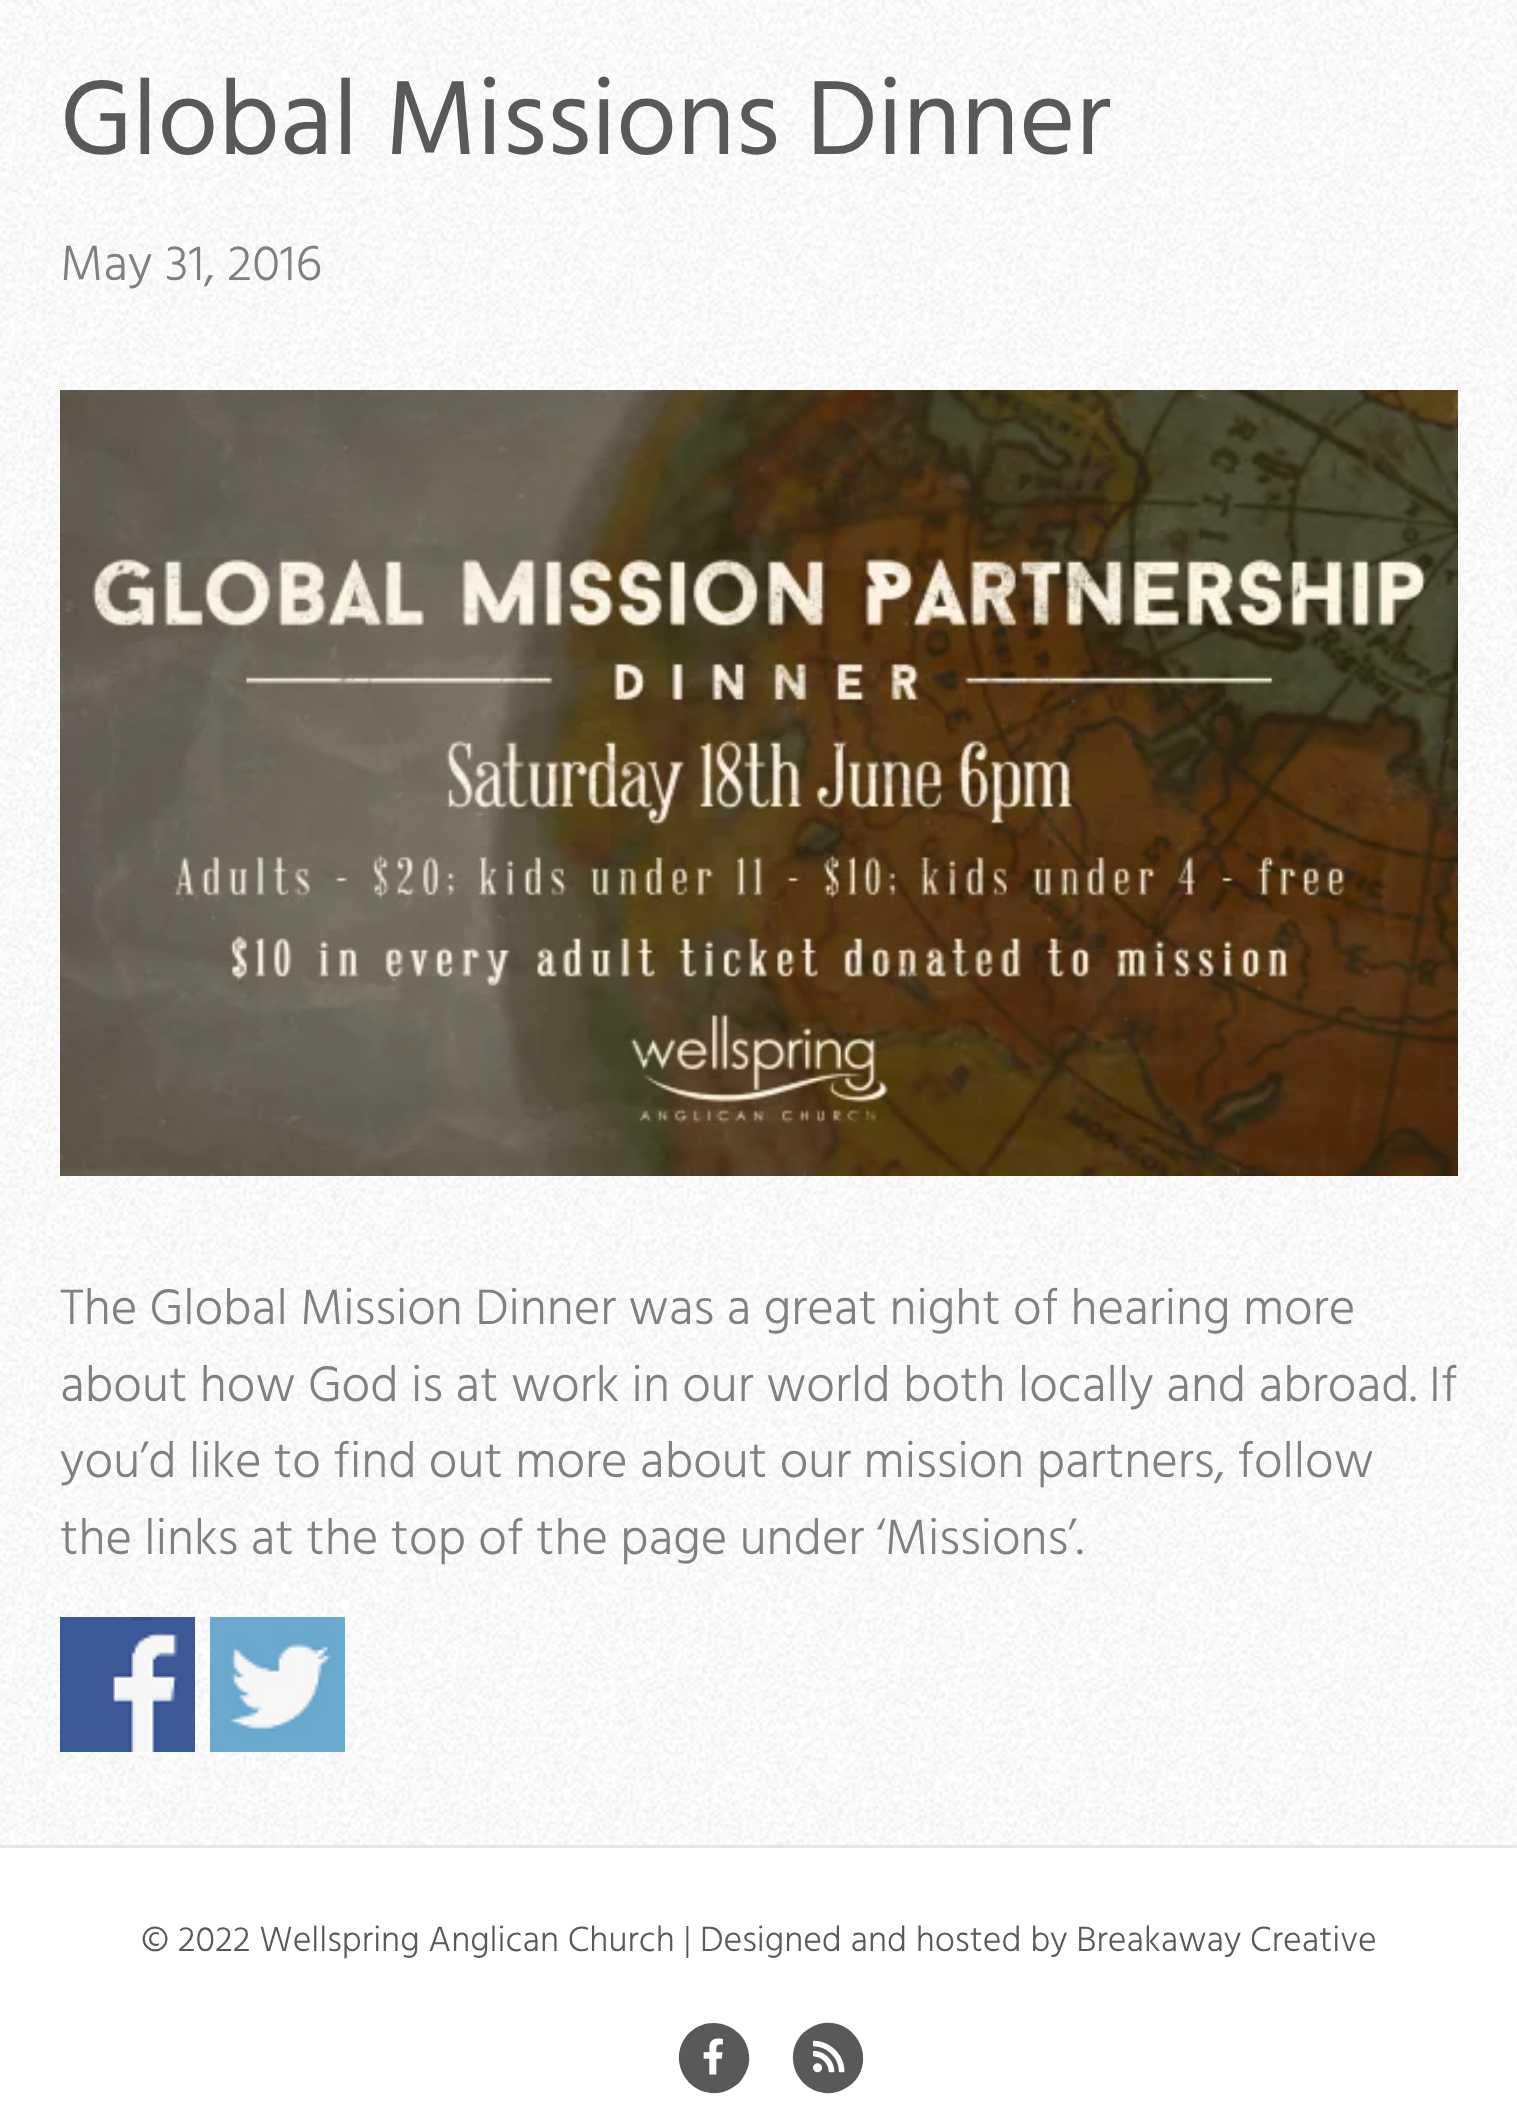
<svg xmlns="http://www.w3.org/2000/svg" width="1517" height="2123">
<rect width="100%" height="100%" fill="#fff"/>
<image x="0" y="0" width="1517" height="1845" href="media/1.png"/>
<text x="60" y="154" style="font-family:Hind Vadodara;font-size:108px;fill:#58595b">Global Missions Dinner</text>
<text x="60" y="280" style="font-family:Hind Vadodara;font-size:51px;font-weight:300;fill:#808080">May 31, 2016</text>
<image x="60" y="390" width="1398" height="786" href="media/2.png"/>
<text x="60" y="1324" style="font-family:Hind Vadodara;font-size:51px;font-weight:300;fill:#808080">The Global Mission Dinner was a great night of hearing more</text>
<text x="60" y="1401" style="font-family:Hind Vadodara;font-size:51px;font-weight:300;fill:#808080">about how God is at work in our world both locally and abroad. If</text>
<text x="60" y="1477" style="font-family:Hind Vadodara;font-size:51px;font-weight:300;fill:#808080">you’d like to find out more about our mission partners, follow</text>
<text x="60" y="1554" style="font-family:Hind Vadodara;font-size:51px;font-weight:300;fill:#808080">the links at the top of the page under ‘Missions’.</text>
<image x="60" y="1617" width="135" height="135" href="media/3.png"/>
<image x="210" y="1617" width="135" height="135" href="media/4.png"/>
<rect y="1845" width="1517" height="3" fill="#e6e6e6"/>
<text x="141" y="1951" style="font-family:Hind Vadodara;font-size:36px;font-weight:300;fill:#58595b">© 2022 Wellspring Anglican Church | Designed and hosted by Breakaway Creative</text>
<path d="M689 2033c24-23 63-4 60 29c-1 8-5 15-10 21c-6 5-13 9-21 10c-33 3-52-36-29-60z" fill="#58595b"/>
<image x="703" y="2038" width="20" height="37" href="media/5.png"/>
<path d="M803 2033c6-5 13-9 21-10c33-3 52 36 29 60c-6 5-13 9-21 10c-33 3-52-36-29-60z" fill="#58595b"/>
<image x="813" y="2040" width="32" height="33" href="media/6.png"/>
</svg>
